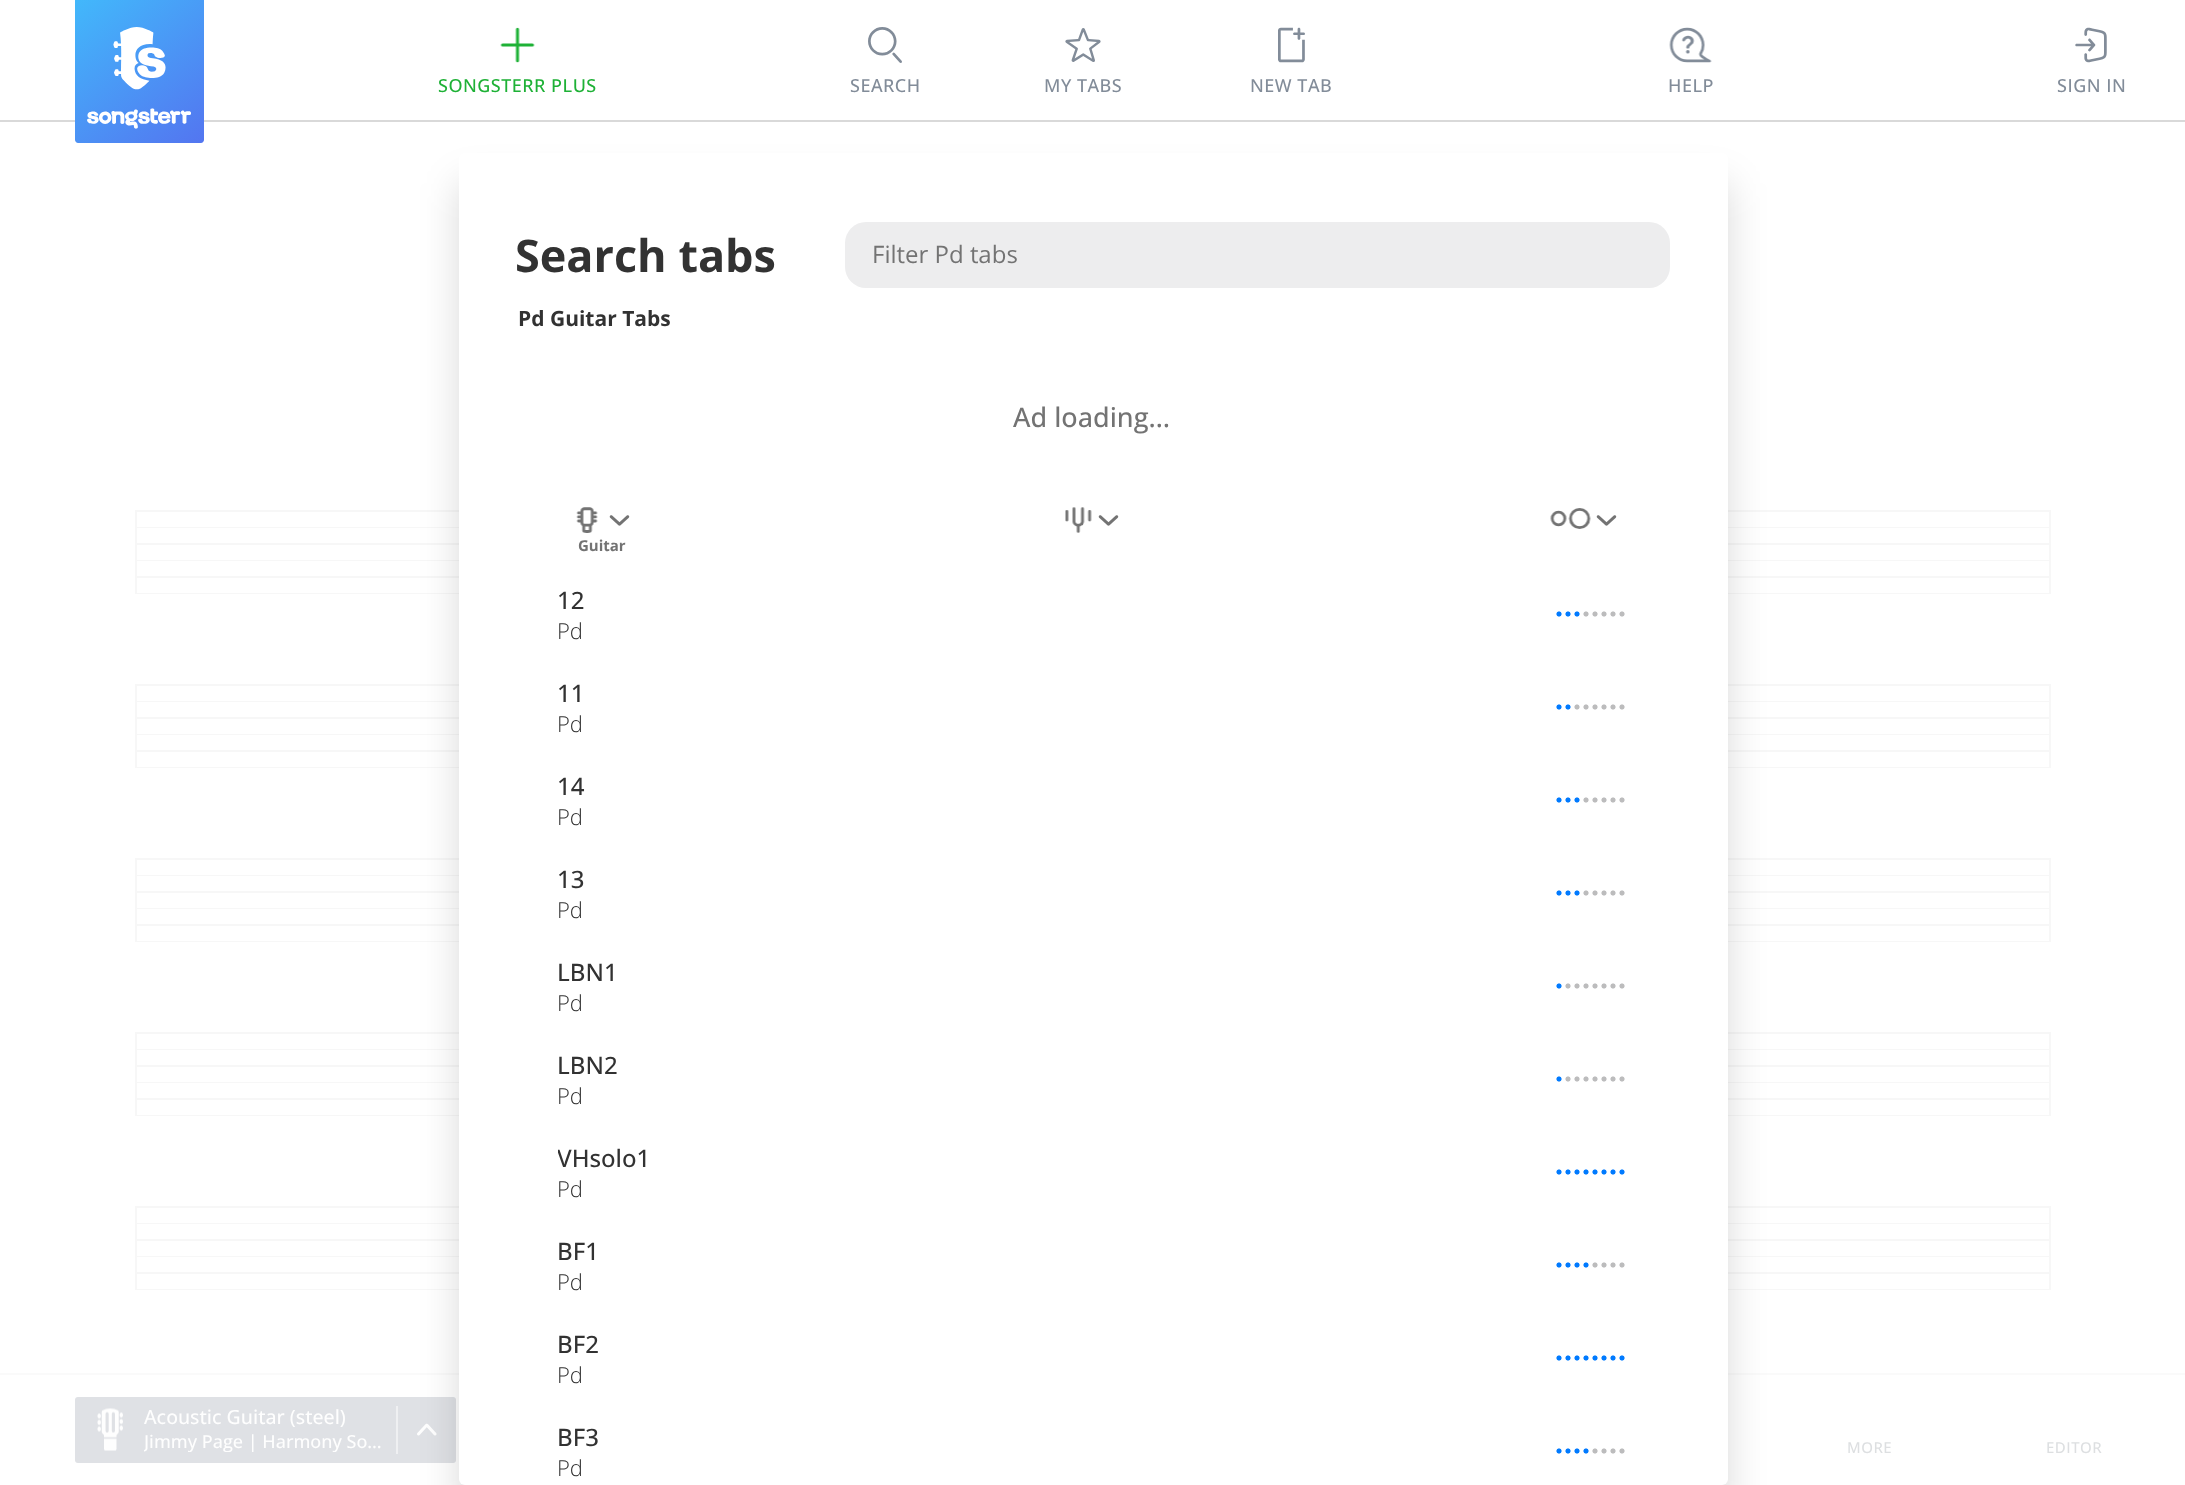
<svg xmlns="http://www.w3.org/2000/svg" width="2185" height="1485">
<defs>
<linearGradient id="g1" gradientUnits="userSpaceOnUse" x1="79" y1="-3.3" x2="200" y2="146"><stop offset="0" stop-color="#42b8fb"/><stop offset="0.99" stop-color="#5376f0"/></linearGradient>
<radialGradient id="g2" gradientUnits="userSpaceOnUse" cx="1622" cy="614" r="3"><stop offset="0.7" stop-color="#bcbcbd"/><stop offset="1" stop-color="#fff"/></radialGradient>
<radialGradient id="g3" gradientUnits="userSpaceOnUse" cx="1613" cy="614" r="3"><stop offset="0.7" stop-color="#bcbcbd"/><stop offset="1" stop-color="#fff"/></radialGradient>
<radialGradient id="g4" gradientUnits="userSpaceOnUse" cx="1604" cy="614" r="3"><stop offset="0.7" stop-color="#bcbcbd"/><stop offset="1" stop-color="#fff"/></radialGradient>
<radialGradient id="g5" gradientUnits="userSpaceOnUse" cx="1595" cy="614" r="3"><stop offset="0.7" stop-color="#bcbcbd"/><stop offset="1" stop-color="#fff"/></radialGradient>
<radialGradient id="g6" gradientUnits="userSpaceOnUse" cx="1586" cy="614" r="3"><stop offset="0.7" stop-color="#bcbcbd"/><stop offset="1" stop-color="#fff"/></radialGradient>
<radialGradient id="g7" gradientUnits="userSpaceOnUse" cx="1577" cy="614" r="3"><stop offset="0.7" stop-color="#007aff"/><stop offset="1" stop-color="#fff"/></radialGradient>
<radialGradient id="g8" gradientUnits="userSpaceOnUse" cx="1568" cy="614" r="3"><stop offset="0.7" stop-color="#007aff"/><stop offset="1" stop-color="#fff"/></radialGradient>
<radialGradient id="g9" gradientUnits="userSpaceOnUse" cx="1559" cy="614" r="3"><stop offset="0.7" stop-color="#007aff"/><stop offset="1" stop-color="#fff"/></radialGradient>
<radialGradient id="g10" gradientUnits="userSpaceOnUse" cx="1622" cy="707" r="3"><stop offset="0.7" stop-color="#bcbcbd"/><stop offset="1" stop-color="#fff"/></radialGradient>
<radialGradient id="g11" gradientUnits="userSpaceOnUse" cx="1613" cy="707" r="3"><stop offset="0.7" stop-color="#bcbcbd"/><stop offset="1" stop-color="#fff"/></radialGradient>
<radialGradient id="g12" gradientUnits="userSpaceOnUse" cx="1604" cy="707" r="3"><stop offset="0.7" stop-color="#bcbcbd"/><stop offset="1" stop-color="#fff"/></radialGradient>
<radialGradient id="g13" gradientUnits="userSpaceOnUse" cx="1595" cy="707" r="3"><stop offset="0.7" stop-color="#bcbcbd"/><stop offset="1" stop-color="#fff"/></radialGradient>
<radialGradient id="g14" gradientUnits="userSpaceOnUse" cx="1586" cy="707" r="3"><stop offset="0.7" stop-color="#bcbcbd"/><stop offset="1" stop-color="#fff"/></radialGradient>
<radialGradient id="g15" gradientUnits="userSpaceOnUse" cx="1577" cy="707" r="3"><stop offset="0.7" stop-color="#bcbcbd"/><stop offset="1" stop-color="#fff"/></radialGradient>
<radialGradient id="g16" gradientUnits="userSpaceOnUse" cx="1568" cy="707" r="3"><stop offset="0.7" stop-color="#007aff"/><stop offset="1" stop-color="#fff"/></radialGradient>
<radialGradient id="g17" gradientUnits="userSpaceOnUse" cx="1559" cy="707" r="3"><stop offset="0.7" stop-color="#007aff"/><stop offset="1" stop-color="#fff"/></radialGradient>
<radialGradient id="g18" gradientUnits="userSpaceOnUse" cx="1622" cy="800" r="3"><stop offset="0.7" stop-color="#bcbcbd"/><stop offset="1" stop-color="#fff"/></radialGradient>
<radialGradient id="g19" gradientUnits="userSpaceOnUse" cx="1613" cy="800" r="3"><stop offset="0.7" stop-color="#bcbcbd"/><stop offset="1" stop-color="#fff"/></radialGradient>
<radialGradient id="g20" gradientUnits="userSpaceOnUse" cx="1604" cy="800" r="3"><stop offset="0.7" stop-color="#bcbcbd"/><stop offset="1" stop-color="#fff"/></radialGradient>
<radialGradient id="g21" gradientUnits="userSpaceOnUse" cx="1595" cy="800" r="3"><stop offset="0.7" stop-color="#bcbcbd"/><stop offset="1" stop-color="#fff"/></radialGradient>
<radialGradient id="g22" gradientUnits="userSpaceOnUse" cx="1586" cy="800" r="3"><stop offset="0.7" stop-color="#bcbcbd"/><stop offset="1" stop-color="#fff"/></radialGradient>
<radialGradient id="g23" gradientUnits="userSpaceOnUse" cx="1577" cy="800" r="3"><stop offset="0.7" stop-color="#007aff"/><stop offset="1" stop-color="#fff"/></radialGradient>
<radialGradient id="g24" gradientUnits="userSpaceOnUse" cx="1568" cy="800" r="3"><stop offset="0.7" stop-color="#007aff"/><stop offset="1" stop-color="#fff"/></radialGradient>
<radialGradient id="g25" gradientUnits="userSpaceOnUse" cx="1559" cy="800" r="3"><stop offset="0.7" stop-color="#007aff"/><stop offset="1" stop-color="#fff"/></radialGradient>
<radialGradient id="g26" gradientUnits="userSpaceOnUse" cx="1622" cy="893" r="3"><stop offset="0.7" stop-color="#bcbcbd"/><stop offset="1" stop-color="#fff"/></radialGradient>
<radialGradient id="g27" gradientUnits="userSpaceOnUse" cx="1613" cy="893" r="3"><stop offset="0.7" stop-color="#bcbcbd"/><stop offset="1" stop-color="#fff"/></radialGradient>
<radialGradient id="g28" gradientUnits="userSpaceOnUse" cx="1604" cy="893" r="3"><stop offset="0.7" stop-color="#bcbcbd"/><stop offset="1" stop-color="#fff"/></radialGradient>
<radialGradient id="g29" gradientUnits="userSpaceOnUse" cx="1595" cy="893" r="3"><stop offset="0.7" stop-color="#bcbcbd"/><stop offset="1" stop-color="#fff"/></radialGradient>
<radialGradient id="g30" gradientUnits="userSpaceOnUse" cx="1586" cy="893" r="3"><stop offset="0.7" stop-color="#bcbcbd"/><stop offset="1" stop-color="#fff"/></radialGradient>
<radialGradient id="g31" gradientUnits="userSpaceOnUse" cx="1577" cy="893" r="3"><stop offset="0.7" stop-color="#007aff"/><stop offset="1" stop-color="#fff"/></radialGradient>
<radialGradient id="g32" gradientUnits="userSpaceOnUse" cx="1568" cy="893" r="3"><stop offset="0.7" stop-color="#007aff"/><stop offset="1" stop-color="#fff"/></radialGradient>
<radialGradient id="g33" gradientUnits="userSpaceOnUse" cx="1559" cy="893" r="3"><stop offset="0.7" stop-color="#007aff"/><stop offset="1" stop-color="#fff"/></radialGradient>
<radialGradient id="g34" gradientUnits="userSpaceOnUse" cx="1622" cy="986" r="3"><stop offset="0.7" stop-color="#bcbcbd"/><stop offset="1" stop-color="#fff"/></radialGradient>
<radialGradient id="g35" gradientUnits="userSpaceOnUse" cx="1613" cy="986" r="3"><stop offset="0.7" stop-color="#bcbcbd"/><stop offset="1" stop-color="#fff"/></radialGradient>
<radialGradient id="g36" gradientUnits="userSpaceOnUse" cx="1604" cy="986" r="3"><stop offset="0.7" stop-color="#bcbcbd"/><stop offset="1" stop-color="#fff"/></radialGradient>
<radialGradient id="g37" gradientUnits="userSpaceOnUse" cx="1595" cy="986" r="3"><stop offset="0.7" stop-color="#bcbcbd"/><stop offset="1" stop-color="#fff"/></radialGradient>
<radialGradient id="g38" gradientUnits="userSpaceOnUse" cx="1586" cy="986" r="3"><stop offset="0.7" stop-color="#bcbcbd"/><stop offset="1" stop-color="#fff"/></radialGradient>
<radialGradient id="g39" gradientUnits="userSpaceOnUse" cx="1577" cy="986" r="3"><stop offset="0.7" stop-color="#bcbcbd"/><stop offset="1" stop-color="#fff"/></radialGradient>
<radialGradient id="g40" gradientUnits="userSpaceOnUse" cx="1568" cy="986" r="3"><stop offset="0.7" stop-color="#bcbcbd"/><stop offset="1" stop-color="#fff"/></radialGradient>
<radialGradient id="g41" gradientUnits="userSpaceOnUse" cx="1559" cy="986" r="3"><stop offset="0.7" stop-color="#007aff"/><stop offset="1" stop-color="#fff"/></radialGradient>
<radialGradient id="g42" gradientUnits="userSpaceOnUse" cx="1622" cy="1079" r="3"><stop offset="0.7" stop-color="#bcbcbd"/><stop offset="1" stop-color="#fff"/></radialGradient>
<radialGradient id="g43" gradientUnits="userSpaceOnUse" cx="1613" cy="1079" r="3"><stop offset="0.7" stop-color="#bcbcbd"/><stop offset="1" stop-color="#fff"/></radialGradient>
<radialGradient id="g44" gradientUnits="userSpaceOnUse" cx="1604" cy="1079" r="3"><stop offset="0.7" stop-color="#bcbcbd"/><stop offset="1" stop-color="#fff"/></radialGradient>
<radialGradient id="g45" gradientUnits="userSpaceOnUse" cx="1595" cy="1079" r="3"><stop offset="0.7" stop-color="#bcbcbd"/><stop offset="1" stop-color="#fff"/></radialGradient>
<radialGradient id="g46" gradientUnits="userSpaceOnUse" cx="1586" cy="1079" r="3"><stop offset="0.7" stop-color="#bcbcbd"/><stop offset="1" stop-color="#fff"/></radialGradient>
<radialGradient id="g47" gradientUnits="userSpaceOnUse" cx="1577" cy="1079" r="3"><stop offset="0.7" stop-color="#bcbcbd"/><stop offset="1" stop-color="#fff"/></radialGradient>
<radialGradient id="g48" gradientUnits="userSpaceOnUse" cx="1568" cy="1079" r="3"><stop offset="0.7" stop-color="#bcbcbd"/><stop offset="1" stop-color="#fff"/></radialGradient>
<radialGradient id="g49" gradientUnits="userSpaceOnUse" cx="1559" cy="1079" r="3"><stop offset="0.7" stop-color="#007aff"/><stop offset="1" stop-color="#fff"/></radialGradient>
<clipPath id="clip1"><rect x="558" y="1142" width="983" height="33"/></clipPath>
<radialGradient id="g50" gradientUnits="userSpaceOnUse" cx="1622" cy="1172" r="3"><stop offset="0.7" stop-color="#007aff"/><stop offset="1" stop-color="#fff"/></radialGradient>
<radialGradient id="g51" gradientUnits="userSpaceOnUse" cx="1613" cy="1172" r="3"><stop offset="0.7" stop-color="#007aff"/><stop offset="1" stop-color="#fff"/></radialGradient>
<radialGradient id="g52" gradientUnits="userSpaceOnUse" cx="1604" cy="1172" r="3"><stop offset="0.7" stop-color="#007aff"/><stop offset="1" stop-color="#fff"/></radialGradient>
<radialGradient id="g53" gradientUnits="userSpaceOnUse" cx="1595" cy="1172" r="3"><stop offset="0.7" stop-color="#007aff"/><stop offset="1" stop-color="#fff"/></radialGradient>
<radialGradient id="g54" gradientUnits="userSpaceOnUse" cx="1586" cy="1172" r="3"><stop offset="0.7" stop-color="#007aff"/><stop offset="1" stop-color="#fff"/></radialGradient>
<radialGradient id="g55" gradientUnits="userSpaceOnUse" cx="1577" cy="1172" r="3"><stop offset="0.7" stop-color="#007aff"/><stop offset="1" stop-color="#fff"/></radialGradient>
<radialGradient id="g56" gradientUnits="userSpaceOnUse" cx="1568" cy="1172" r="3"><stop offset="0.7" stop-color="#007aff"/><stop offset="1" stop-color="#fff"/></radialGradient>
<radialGradient id="g57" gradientUnits="userSpaceOnUse" cx="1559" cy="1172" r="3"><stop offset="0.7" stop-color="#007aff"/><stop offset="1" stop-color="#fff"/></radialGradient>
<radialGradient id="g58" gradientUnits="userSpaceOnUse" cx="1622" cy="1265" r="3"><stop offset="0.7" stop-color="#bcbcbd"/><stop offset="1" stop-color="#fff"/></radialGradient>
<radialGradient id="g59" gradientUnits="userSpaceOnUse" cx="1613" cy="1265" r="3"><stop offset="0.7" stop-color="#bcbcbd"/><stop offset="1" stop-color="#fff"/></radialGradient>
<radialGradient id="g60" gradientUnits="userSpaceOnUse" cx="1604" cy="1265" r="3"><stop offset="0.7" stop-color="#bcbcbd"/><stop offset="1" stop-color="#fff"/></radialGradient>
<radialGradient id="g61" gradientUnits="userSpaceOnUse" cx="1595" cy="1265" r="3"><stop offset="0.7" stop-color="#bcbcbd"/><stop offset="1" stop-color="#fff"/></radialGradient>
<radialGradient id="g62" gradientUnits="userSpaceOnUse" cx="1586" cy="1265" r="3"><stop offset="0.7" stop-color="#007aff"/><stop offset="1" stop-color="#fff"/></radialGradient>
<radialGradient id="g63" gradientUnits="userSpaceOnUse" cx="1577" cy="1265" r="3"><stop offset="0.7" stop-color="#007aff"/><stop offset="1" stop-color="#fff"/></radialGradient>
<radialGradient id="g64" gradientUnits="userSpaceOnUse" cx="1568" cy="1265" r="3"><stop offset="0.7" stop-color="#007aff"/><stop offset="1" stop-color="#fff"/></radialGradient>
<radialGradient id="g65" gradientUnits="userSpaceOnUse" cx="1559" cy="1265" r="3"><stop offset="0.7" stop-color="#007aff"/><stop offset="1" stop-color="#fff"/></radialGradient>
<radialGradient id="g66" gradientUnits="userSpaceOnUse" cx="1622" cy="1358" r="3"><stop offset="0.7" stop-color="#007aff"/><stop offset="1" stop-color="#fff"/></radialGradient>
<radialGradient id="g67" gradientUnits="userSpaceOnUse" cx="1613" cy="1358" r="3"><stop offset="0.7" stop-color="#007aff"/><stop offset="1" stop-color="#fff"/></radialGradient>
<radialGradient id="g68" gradientUnits="userSpaceOnUse" cx="1604" cy="1358" r="3"><stop offset="0.7" stop-color="#007aff"/><stop offset="1" stop-color="#fff"/></radialGradient>
<radialGradient id="g69" gradientUnits="userSpaceOnUse" cx="1595" cy="1358" r="3"><stop offset="0.7" stop-color="#007aff"/><stop offset="1" stop-color="#fff"/></radialGradient>
<radialGradient id="g70" gradientUnits="userSpaceOnUse" cx="1586" cy="1358" r="3"><stop offset="0.7" stop-color="#007aff"/><stop offset="1" stop-color="#fff"/></radialGradient>
<radialGradient id="g71" gradientUnits="userSpaceOnUse" cx="1577" cy="1358" r="3"><stop offset="0.7" stop-color="#007aff"/><stop offset="1" stop-color="#fff"/></radialGradient>
<radialGradient id="g72" gradientUnits="userSpaceOnUse" cx="1568" cy="1358" r="3"><stop offset="0.7" stop-color="#007aff"/><stop offset="1" stop-color="#fff"/></radialGradient>
<radialGradient id="g73" gradientUnits="userSpaceOnUse" cx="1559" cy="1358" r="3"><stop offset="0.7" stop-color="#007aff"/><stop offset="1" stop-color="#fff"/></radialGradient>
<radialGradient id="g74" gradientUnits="userSpaceOnUse" cx="1622" cy="1451" r="3"><stop offset="0.7" stop-color="#bcbcbd"/><stop offset="1" stop-color="#fff"/></radialGradient>
<radialGradient id="g75" gradientUnits="userSpaceOnUse" cx="1613" cy="1451" r="3"><stop offset="0.7" stop-color="#bcbcbd"/><stop offset="1" stop-color="#fff"/></radialGradient>
<radialGradient id="g76" gradientUnits="userSpaceOnUse" cx="1604" cy="1451" r="3"><stop offset="0.7" stop-color="#bcbcbd"/><stop offset="1" stop-color="#fff"/></radialGradient>
<radialGradient id="g77" gradientUnits="userSpaceOnUse" cx="1595" cy="1451" r="3"><stop offset="0.7" stop-color="#bcbcbd"/><stop offset="1" stop-color="#fff"/></radialGradient>
<radialGradient id="g78" gradientUnits="userSpaceOnUse" cx="1586" cy="1451" r="3"><stop offset="0.7" stop-color="#007aff"/><stop offset="1" stop-color="#fff"/></radialGradient>
<radialGradient id="g79" gradientUnits="userSpaceOnUse" cx="1577" cy="1451" r="3"><stop offset="0.7" stop-color="#007aff"/><stop offset="1" stop-color="#fff"/></radialGradient>
<radialGradient id="g80" gradientUnits="userSpaceOnUse" cx="1568" cy="1451" r="3"><stop offset="0.7" stop-color="#007aff"/><stop offset="1" stop-color="#fff"/></radialGradient>
<radialGradient id="g81" gradientUnits="userSpaceOnUse" cx="1559" cy="1451" r="3"><stop offset="0.7" stop-color="#007aff"/><stop offset="1" stop-color="#fff"/></radialGradient>
<clipPath id="clip2"><rect x="144" y="1430" width="243" height="22"/></clipPath>
</defs>
<rect width="100%" height="100%" fill="#fff"/>
<rect y="120" width="2185" height="2" fill="#d9d9d9"/>
<path d="M75 0h129v140c0 1.5-1.5 3-3 3h-123c-1.5 0-3-1.5-3-3z" fill="url(#g1)"/>
<image x="113" y="27" width="53" height="63" href="media/1.png"/>
<image x="87" y="108" width="104" height="21" href="media/2.png"/>
<image x="500" y="27" width="35" height="36" href="media/3.png"/>
<text x="438" y="92" style="font-family:Open Sans;font-size:18px;font-weight:500;letter-spacing:0.5px;fill:#1eb136">SONGSTERR PLUS</text>
<image x="868" y="27" width="34" height="36" href="media/4.png"/>
<text x="850" y="92" style="font-family:Open Sans;font-size:18px;font-weight:500;letter-spacing:0.5px;fill:#828c99">SEARCH</text>
<image x="1065" y="28" width="36" height="34" href="media/5.png"/>
<text x="1044" y="92" style="font-family:Open Sans;font-size:18px;font-weight:500;letter-spacing:0.5px;fill:#828c99">MY TABS</text>
<image x="1278" y="27" width="27" height="36" href="media/6.png"/>
<text x="1250" y="92" style="font-family:Open Sans;font-size:18px;font-weight:500;letter-spacing:0.5px;fill:#828c99">NEW TAB</text>
<image x="1669" y="27" width="43" height="36" href="media/7.png"/>
<text x="1668" y="92" style="font-family:Open Sans;font-size:18px;font-weight:500;letter-spacing:0.5px;fill:#828c99">HELP</text>
<image x="2075" y="27" width="32" height="36" href="media/8.png"/>
<text x="2057" y="92" style="font-family:Open Sans;font-size:18px;font-weight:500;letter-spacing:0.5px;fill:#828c99">SIGN IN</text>
<rect x="135" y="510" width="1916" height="84" fill="#f7f7f7"/>
<rect x="137" y="512" width="1912" height="15" fill="#fff"/>
<rect x="137" y="528" width="1912" height="15" fill="#fff"/>
<rect x="137" y="545" width="1912" height="15" fill="#fff"/>
<rect x="137" y="561" width="1912" height="15" fill="#fff"/>
<rect x="137" y="578" width="1912" height="15" fill="#fff"/>
<rect x="135" y="684" width="1916" height="84" fill="#f7f7f7"/>
<rect x="137" y="686" width="1912" height="15" fill="#fff"/>
<rect x="137" y="702" width="1912" height="15" fill="#fff"/>
<rect x="137" y="719" width="1912" height="15" fill="#fff"/>
<rect x="137" y="735" width="1912" height="15" fill="#fff"/>
<rect x="137" y="752" width="1912" height="15" fill="#fff"/>
<rect x="135" y="858" width="1916" height="84" fill="#f7f7f7"/>
<rect x="137" y="860" width="1912" height="15" fill="#fff"/>
<rect x="137" y="876" width="1912" height="15" fill="#fff"/>
<rect x="137" y="893" width="1912" height="15" fill="#fff"/>
<rect x="137" y="909" width="1912" height="15" fill="#fff"/>
<rect x="137" y="926" width="1912" height="15" fill="#fff"/>
<rect x="135" y="1032" width="1916" height="84" fill="#f7f7f7"/>
<rect x="137" y="1034" width="1912" height="15" fill="#fff"/>
<rect x="137" y="1050" width="1912" height="15" fill="#fff"/>
<rect x="137" y="1067" width="1912" height="15" fill="#fff"/>
<rect x="137" y="1083" width="1912" height="15" fill="#fff"/>
<rect x="137" y="1100" width="1912" height="15" fill="#fff"/>
<rect x="135" y="1206" width="1916" height="84" fill="#f7f7f7"/>
<rect x="137" y="1208" width="1912" height="15" fill="#fff"/>
<rect x="137" y="1224" width="1912" height="15" fill="#fff"/>
<rect x="137" y="1241" width="1912" height="15" fill="#fff"/>
<rect x="137" y="1257" width="1912" height="15" fill="#fff"/>
<rect x="137" y="1274" width="1912" height="15" fill="#fff"/>
<rect y="1373" width="2185" height="2" fill="#fafafa"/>
<rect x="75" y="1397" width="381" height="66" rx="3" fill="#dfe1e5"/>
<image x="417" y="1423" width="20" height="13" href="media/14.png"/>
<rect x="459" y="183" width="1269" height="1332" rx="6" fill="#00000026" filter="blur(19px)"/>
<rect x="459" y="153" width="1269" height="1332" rx="6" fill="#fff"/>
<text x="515" y="272" style="font-family:Open Sans;font-size:45px;font-weight:bold;fill:#323232">Search tabs</text>
<rect x="845" y="222" width="825" height="66" rx="21" fill="#ededee"/>
<text x="872" y="263" style="font-family:Open Sans;font-size:24px;fill:#737373">Filter Pd tabs</text>
<text x="518" y="326" style="font-family:Open Sans;font-size:21px;font-weight:bold;fill:#323232">Pd Guitar Tabs</text>
<text x="1013" y="427" style="font-family:Open Sans;font-size:27px;font-weight:500;fill:#737373">Ad loading…</text>
<image x="1065" y="507" width="27" height="26" href="media/9.png"/>
<image x="1098" y="515" width="21" height="11" href="media/10.png"/>
<image x="1550" y="508" width="41" height="21" href="media/11.png"/>
<image x="1596" y="515" width="21" height="11" href="media/10.png"/>
<image x="576" y="507" width="22" height="26" href="media/12.png"/>
<image x="609" y="515" width="21" height="11" href="media/10.png"/>
<text x="578" y="551" style="font-family:Open Sans;font-size:15px;font-weight:bold;fill:#737373">Guitar</text>
<text x="557" y="609" style="font-family:Open Sans;font-size:24px;font-weight:500;fill:#323232">12</text>
<text x="557" y="639" style="font-family:Open Sans;font-size:22px;font-weight:300;fill:#323232">Pd</text>
<rect x="1619" y="611" width="6" height="6" fill="url(#g2)"/>
<rect x="1610" y="611" width="6" height="6" fill="url(#g3)"/>
<rect x="1601" y="611" width="6" height="6" fill="url(#g4)"/>
<rect x="1592" y="611" width="6" height="6" fill="url(#g5)"/>
<rect x="1583" y="611" width="6" height="6" fill="url(#g6)"/>
<rect x="1574" y="611" width="6" height="6" fill="url(#g7)"/>
<rect x="1565" y="611" width="6" height="6" fill="url(#g8)"/>
<rect x="1556" y="611" width="6" height="6" fill="url(#g9)"/>
<text x="557" y="702" style="font-family:Open Sans;font-size:24px;font-weight:500;fill:#323232">11</text>
<text x="557" y="732" style="font-family:Open Sans;font-size:22px;font-weight:300;fill:#323232">Pd</text>
<rect x="1619" y="704" width="6" height="6" fill="url(#g10)"/>
<rect x="1610" y="704" width="6" height="6" fill="url(#g11)"/>
<rect x="1601" y="704" width="6" height="6" fill="url(#g12)"/>
<rect x="1592" y="704" width="6" height="6" fill="url(#g13)"/>
<rect x="1583" y="704" width="6" height="6" fill="url(#g14)"/>
<rect x="1574" y="704" width="6" height="6" fill="url(#g15)"/>
<rect x="1565" y="704" width="6" height="6" fill="url(#g16)"/>
<rect x="1556" y="704" width="6" height="6" fill="url(#g17)"/>
<text x="557" y="795" style="font-family:Open Sans;font-size:24px;font-weight:500;fill:#323232">14</text>
<text x="557" y="825" style="font-family:Open Sans;font-size:22px;font-weight:300;fill:#323232">Pd</text>
<rect x="1619" y="797" width="6" height="6" fill="url(#g18)"/>
<rect x="1610" y="797" width="6" height="6" fill="url(#g19)"/>
<rect x="1601" y="797" width="6" height="6" fill="url(#g20)"/>
<rect x="1592" y="797" width="6" height="6" fill="url(#g21)"/>
<rect x="1583" y="797" width="6" height="6" fill="url(#g22)"/>
<rect x="1574" y="797" width="6" height="6" fill="url(#g23)"/>
<rect x="1565" y="797" width="6" height="6" fill="url(#g24)"/>
<rect x="1556" y="797" width="6" height="6" fill="url(#g25)"/>
<text x="557" y="888" style="font-family:Open Sans;font-size:24px;font-weight:500;fill:#323232">13</text>
<text x="557" y="918" style="font-family:Open Sans;font-size:22px;font-weight:300;fill:#323232">Pd</text>
<rect x="1619" y="890" width="6" height="6" fill="url(#g26)"/>
<rect x="1610" y="890" width="6" height="6" fill="url(#g27)"/>
<rect x="1601" y="890" width="6" height="6" fill="url(#g28)"/>
<rect x="1592" y="890" width="6" height="6" fill="url(#g29)"/>
<rect x="1583" y="890" width="6" height="6" fill="url(#g30)"/>
<rect x="1574" y="890" width="6" height="6" fill="url(#g31)"/>
<rect x="1565" y="890" width="6" height="6" fill="url(#g32)"/>
<rect x="1556" y="890" width="6" height="6" fill="url(#g33)"/>
<text x="557" y="981" style="font-family:Open Sans;font-size:24px;font-weight:500;fill:#323232">LBN1</text>
<text x="557" y="1011" style="font-family:Open Sans;font-size:22px;font-weight:300;fill:#323232">Pd</text>
<rect x="1619" y="983" width="6" height="6" fill="url(#g34)"/>
<rect x="1610" y="983" width="6" height="6" fill="url(#g35)"/>
<rect x="1601" y="983" width="6" height="6" fill="url(#g36)"/>
<rect x="1592" y="983" width="6" height="6" fill="url(#g37)"/>
<rect x="1583" y="983" width="6" height="6" fill="url(#g38)"/>
<rect x="1574" y="983" width="6" height="6" fill="url(#g39)"/>
<rect x="1565" y="983" width="6" height="6" fill="url(#g40)"/>
<rect x="1556" y="983" width="6" height="6" fill="url(#g41)"/>
<text x="557" y="1074" style="font-family:Open Sans;font-size:24px;font-weight:500;fill:#323232">LBN2</text>
<text x="557" y="1104" style="font-family:Open Sans;font-size:22px;font-weight:300;fill:#323232">Pd</text>
<rect x="1619" y="1076" width="6" height="6" fill="url(#g42)"/>
<rect x="1610" y="1076" width="6" height="6" fill="url(#g43)"/>
<rect x="1601" y="1076" width="6" height="6" fill="url(#g44)"/>
<rect x="1592" y="1076" width="6" height="6" fill="url(#g45)"/>
<rect x="1583" y="1076" width="6" height="6" fill="url(#g46)"/>
<rect x="1574" y="1076" width="6" height="6" fill="url(#g47)"/>
<rect x="1565" y="1076" width="6" height="6" fill="url(#g48)"/>
<rect x="1556" y="1076" width="6" height="6" fill="url(#g49)"/>
<g clip-path="url(#clip1)">
<text x="557" y="1167" style="font-family:Open Sans;font-size:24px;font-weight:500;fill:#323232">VHsolo1</text>
</g>
<text x="557" y="1197" style="font-family:Open Sans;font-size:22px;font-weight:300;fill:#323232">Pd</text>
<rect x="1619" y="1169" width="6" height="6" fill="url(#g50)"/>
<rect x="1610" y="1169" width="6" height="6" fill="url(#g51)"/>
<rect x="1601" y="1169" width="6" height="6" fill="url(#g52)"/>
<rect x="1592" y="1169" width="6" height="6" fill="url(#g53)"/>
<rect x="1583" y="1169" width="6" height="6" fill="url(#g54)"/>
<rect x="1574" y="1169" width="6" height="6" fill="url(#g55)"/>
<rect x="1565" y="1169" width="6" height="6" fill="url(#g56)"/>
<rect x="1556" y="1169" width="6" height="6" fill="url(#g57)"/>
<text x="557" y="1260" style="font-family:Open Sans;font-size:24px;font-weight:500;fill:#323232">BF1</text>
<text x="557" y="1290" style="font-family:Open Sans;font-size:22px;font-weight:300;fill:#323232">Pd</text>
<rect x="1619" y="1262" width="6" height="6" fill="url(#g58)"/>
<rect x="1610" y="1262" width="6" height="6" fill="url(#g59)"/>
<rect x="1601" y="1262" width="6" height="6" fill="url(#g60)"/>
<rect x="1592" y="1262" width="6" height="6" fill="url(#g61)"/>
<rect x="1583" y="1262" width="6" height="6" fill="url(#g62)"/>
<rect x="1574" y="1262" width="6" height="6" fill="url(#g63)"/>
<rect x="1565" y="1262" width="6" height="6" fill="url(#g64)"/>
<rect x="1556" y="1262" width="6" height="6" fill="url(#g65)"/>
<text x="557" y="1353" style="font-family:Open Sans;font-size:24px;font-weight:500;fill:#323232">BF2</text>
<text x="557" y="1383" style="font-family:Open Sans;font-size:22px;font-weight:300;fill:#323232">Pd</text>
<rect x="1619" y="1355" width="6" height="6" fill="url(#g66)"/>
<rect x="1610" y="1355" width="6" height="6" fill="url(#g67)"/>
<rect x="1601" y="1355" width="6" height="6" fill="url(#g68)"/>
<rect x="1592" y="1355" width="6" height="6" fill="url(#g69)"/>
<rect x="1583" y="1355" width="6" height="6" fill="url(#g70)"/>
<rect x="1574" y="1355" width="6" height="6" fill="url(#g71)"/>
<rect x="1565" y="1355" width="6" height="6" fill="url(#g72)"/>
<rect x="1556" y="1355" width="6" height="6" fill="url(#g73)"/>
<text x="557" y="1446" style="font-family:Open Sans;font-size:24px;font-weight:500;fill:#323232">BF3</text>
<text x="557" y="1476" style="font-family:Open Sans;font-size:22px;font-weight:300;fill:#323232">Pd</text>
<rect x="1619" y="1448" width="6" height="6" fill="url(#g74)"/>
<rect x="1610" y="1448" width="6" height="6" fill="url(#g75)"/>
<rect x="1601" y="1448" width="6" height="6" fill="url(#g76)"/>
<rect x="1592" y="1448" width="6" height="6" fill="url(#g77)"/>
<rect x="1583" y="1448" width="6" height="6" fill="url(#g78)"/>
<rect x="1574" y="1448" width="6" height="6" fill="url(#g79)"/>
<rect x="1565" y="1448" width="6" height="6" fill="url(#g80)"/>
<rect x="1556" y="1448" width="6" height="6" fill="url(#g81)"/>
<image x="97" y="1408" width="26" height="43" href="media/13.png"/>
<text x="144" y="1424" style="font-family:Open Sans;font-size:19.5px;font-weight:500;fill:#fefefe">Acoustic Guitar (steel)</text>
<g clip-path="url(#clip2)">
<text x="144" y="1448" style="font-family:Open Sans;font-size:18px;font-weight:500;fill:#fefefe">Jimmy Page | Harmony So…</text>
</g>
<rect x="396" y="1406" width="2" height="48" fill="#eff0f2"/>
<text x="1847" y="1453" style="font-family:Open Sans;font-size:15px;font-weight:500;letter-spacing:0.5px;fill:#dddfe1">MORE</text>
<text x="2046" y="1453" style="font-family:Open Sans;font-size:15px;font-weight:500;letter-spacing:0.5px;fill:#dddfe1">EDITOR</text>
</svg>
